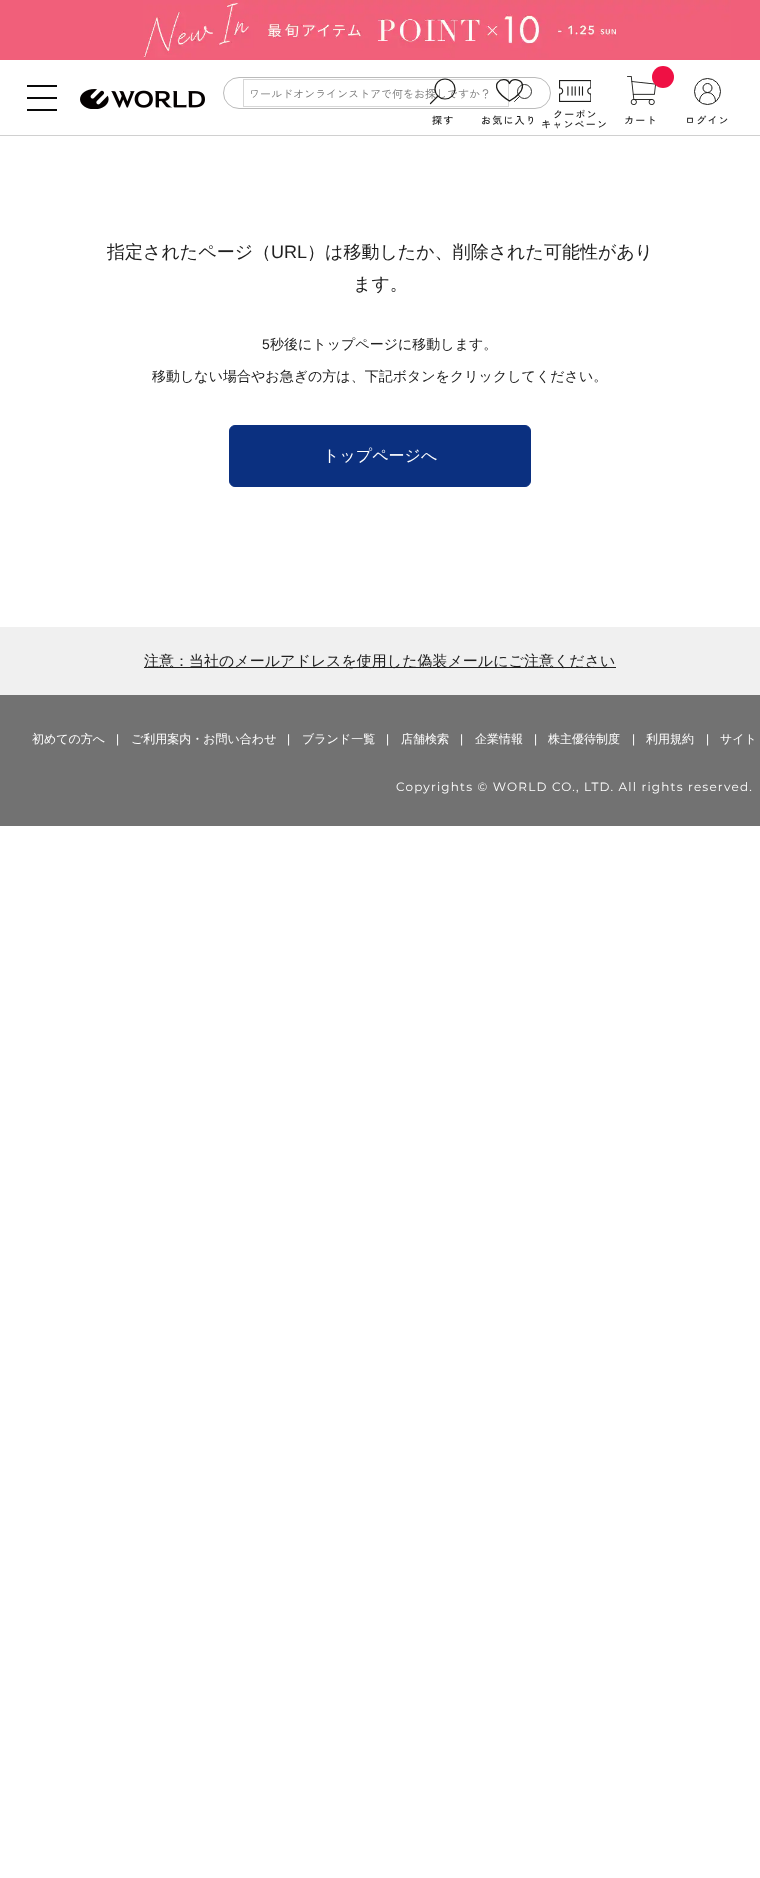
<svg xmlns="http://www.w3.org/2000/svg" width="760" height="1878">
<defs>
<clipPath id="clip1"><rect x="496" y="79" width="27" height="23"/></clipPath>
</defs>
<rect width="100%" height="100%" fill="#fff"/>
<rect width="760" height="60" fill="#f15f7a"/>
<image x="143" y="0" width="588" height="58" href="media/1.png"/>
<rect y="135" width="760" height="1" fill="#d0d0d0"/>
<rect x="27" y="85" width="30" height="2" fill="#090909"/>
<rect x="27" y="97" width="30" height="2" fill="#090909"/>
<rect x="27" y="109" width="30" height="2" fill="#090909"/>
<image x="80" y="89" width="125" height="20" href="media/2.png"/>
<rect x="223.5" y="77.5" width="327" height="31" rx="15.5" fill="none" stroke="#bbb"/>
<rect x="243.5" y="79.5" width="265" height="27" fill="none" stroke="#d7d7d7"/>
<text x="249" y="98" style="font-family:Zen Kaku Gothic New;font-size:11px;fill:#757575">ワールドオンラインストアで何をお探しですか？</text>
<circle cx="524.5" cy="91.5" r="7" fill="none" stroke="#1d1d1b" stroke-width="0.9"/>
<path d="M514.5 101.5l5-5" fill="none" stroke="#1d1d1b" stroke-width="0.9" stroke-linecap="round" stroke-linejoin="round"/>
<circle cx="445" cy="89" r="10" fill="none" stroke="#1d1d1b" stroke-width="1.2"/>
<path d="M430.5 103.5l7.5-7.5" fill="none" stroke="#1d1d1b" stroke-width="1.2" stroke-linecap="round" stroke-linejoin="round"/>
<text x="432" y="124" style="font-family:Zen Kaku Gothic New;font-size:10px;font-weight:500;letter-spacing:1.2px;fill:#202020">探す</text>
<g clip-path="url(#clip1)">
<path d="M522.5 86c0-7-10.5-8.5-13-2.5c-4-10-27 1 0 17.5c6-3.5 13-9 13-15z" fill="none" stroke="#1d1d1b" stroke-width="1.3" stroke-linecap="round" stroke-linejoin="round"/>
</g>
<text x="481" y="124" style="font-family:Zen Kaku Gothic New;font-size:10px;font-weight:500;letter-spacing:1.2px;fill:#202020">お気に入り</text>
<image x="559" y="80" width="32" height="22" href="media/3.png"/>
<text x="553" y="118" style="font-family:Zen Kaku Gothic New;font-size:10px;font-weight:500;letter-spacing:1.2px;fill:#202020">クーポン</text>
<text x="541" y="128" style="font-family:Zen Kaku Gothic New;font-size:10px;font-weight:500;letter-spacing:1.2px;fill:#202020">キャンペーン</text>
<image x="627" y="76" width="29" height="29" href="media/4.png"/>
<circle cx="663" cy="77" r="11" fill="#ef1044"/>
<text x="624" y="124" style="font-family:Zen Kaku Gothic New;font-size:10px;font-weight:500;letter-spacing:1.2px;fill:#202020">カート</text>
<circle cx="707.5" cy="91.5" r="13" fill="none" stroke="#1d1d1b"/>
<circle cx="707.5" cy="88" r="4.5" fill="none" stroke="#1d1d1b"/>
<path d="M715.5 101.5c0-12-16-12-16 0" fill="none" stroke="#1d1d1b" stroke-linecap="round" stroke-linejoin="round"/>
<text x="685" y="124" style="font-family:Zen Kaku Gothic New;font-size:10px;font-weight:500;letter-spacing:1.2px;fill:#202020">ログイン</text>
<text x="107" y="258" style="font-family:WenQuanYi Zen Hei;font-size:18px;font-weight:500;fill:#202020">指定されたページ（</text>
<text x="271" y="258" style="font-family:Liberation Sans;font-size:18px;fill:#202020">URL</text>
<text x="307" y="258" style="font-family:WenQuanYi Zen Hei;font-size:18px;font-weight:500;fill:#202020">）は移動したか、削除された可能性があり</text>
<text x="353" y="290" style="font-family:WenQuanYi Zen Hei;font-size:18px;font-weight:500;fill:#202020">ます。</text>
<text x="262" y="349" style="font-family:Liberation Sans;font-size:14px;fill:#202020">5</text>
<text x="270" y="349" style="font-family:WenQuanYi Zen Hei;font-size:14px;font-weight:500;fill:#202020">秒後にトップページに移動します。</text>
<text x="152" y="381" style="font-family:WenQuanYi Zen Hei;font-size:14px;font-weight:500;fill:#202020">移動しない場合やお急ぎの方は、下記ボタンをクリックしてください。</text>
<rect x="229.5" y="425.5" width="301" height="61" rx="5.5" fill="#0b3080" stroke="#0b3080"/>
<text x="323" y="461" style="font-family:WenQuanYi Zen Hei;font-size:16px;font-weight:500;fill:#fff">トップページへ</text>
<rect y="627" width="760" height="68" fill="#f0f0f0"/>
<rect x="144" y="667" width="472" height="1" fill="#202020"/>
<text x="144" y="666" style="font-family:WenQuanYi Zen Hei;font-size:15px;font-weight:500;fill:#202020">注意：当社のメールアドレスを使用した偽装メールにご注意ください</text>
<rect y="695" width="760" height="131" fill="#727272"/>
<text x="32" y="743" style="font-family:WenQuanYi Zen Hei;font-size:12px;font-weight:500;fill:#fff">初めての方へ</text>
<text x="116" y="743" style="font-family:Liberation Sans;font-size:12px;fill:#fff">|</text>
<text x="131" y="743" style="font-family:WenQuanYi Zen Hei;font-size:12px;font-weight:500;fill:#fff">ご利用案内・お問い合わせ</text>
<text x="287" y="743" style="font-family:Liberation Sans;font-size:12px;fill:#fff">|</text>
<text x="302" y="743" style="font-family:WenQuanYi Zen Hei;font-size:12px;font-weight:500;fill:#fff">ブランド一覧</text>
<text x="386" y="743" style="font-family:Liberation Sans;font-size:12px;fill:#fff">|</text>
<text x="401" y="743" style="font-family:WenQuanYi Zen Hei;font-size:12px;font-weight:500;fill:#fff">店舗検索</text>
<text x="460" y="743" style="font-family:Liberation Sans;font-size:12px;fill:#fff">|</text>
<text x="475" y="743" style="font-family:WenQuanYi Zen Hei;font-size:12px;font-weight:500;fill:#fff">企業情報</text>
<text x="534" y="743" style="font-family:Liberation Sans;font-size:12px;fill:#fff">|</text>
<text x="548" y="743" style="font-family:WenQuanYi Zen Hei;font-size:12px;font-weight:500;fill:#fff">株主優待制度</text>
<text x="632" y="743" style="font-family:Liberation Sans;font-size:12px;fill:#fff">|</text>
<text x="646" y="743" style="font-family:WenQuanYi Zen Hei;font-size:12px;font-weight:500;fill:#fff">利用規約</text>
<text x="706" y="743" style="font-family:Liberation Sans;font-size:12px;fill:#fff">|</text>
<text x="720" y="743" style="font-family:WenQuanYi Zen Hei;font-size:12px;font-weight:500;fill:#fff">サイト</text>
<text x="396" y="791" style="font-family:Montserrat;font-size:12px;font-weight:100;letter-spacing:1.2px;fill:#fff">Copyrights © WORLD CO., LTD. All rights reserved.</text>
</svg>
